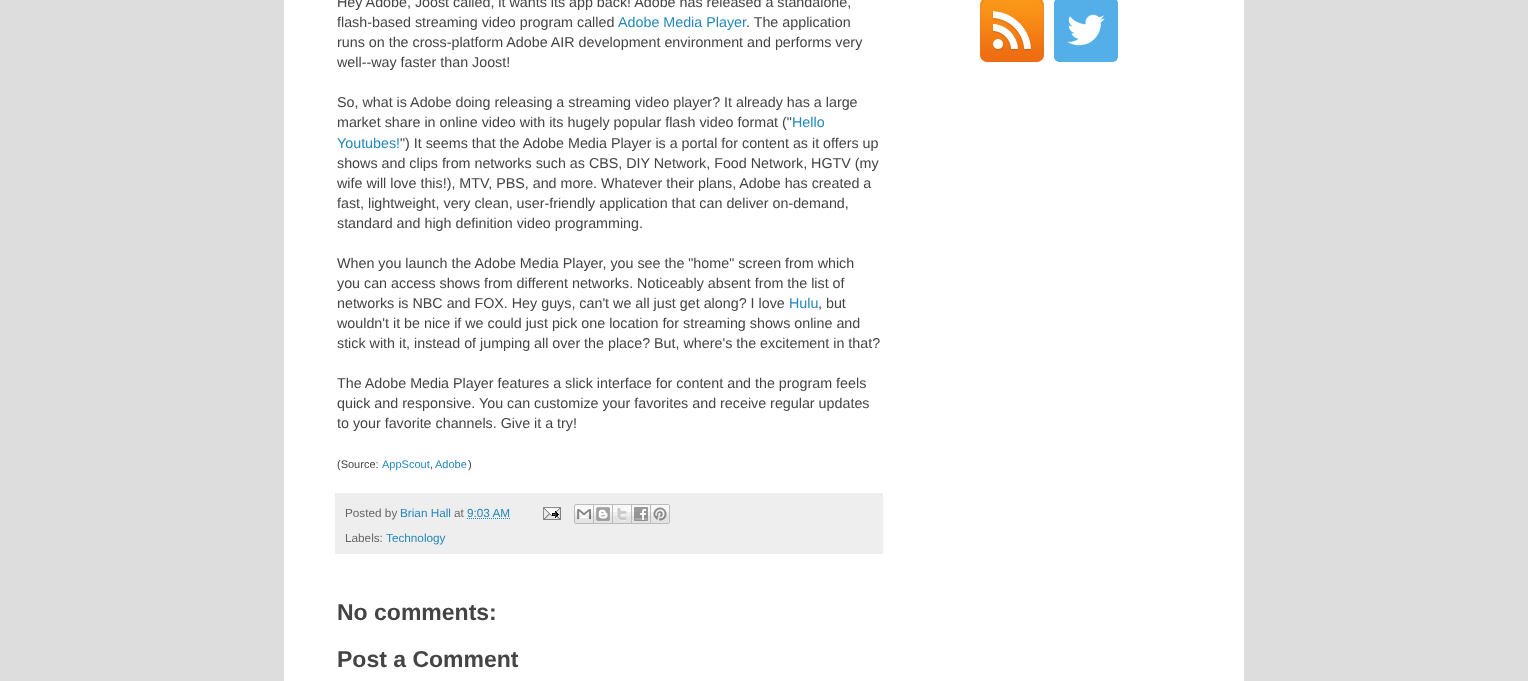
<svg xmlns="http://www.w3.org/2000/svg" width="1528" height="681">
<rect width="100%" height="100%" fill="#ddd"/>
<rect x="284" width="960" height="681" fill="#fff"/>
<text x="337" y="7" style="font-family:Liberation Sans;font-size:14.3px;fill:#444">Hey Adobe, Joost called, it wants its app back! Adobe has released a standalone,</text>
<text x="337" y="27" style="font-family:Liberation Sans;font-size:14.3px;fill:#444">flash-based streaming video program called</text>
<text x="618" y="27" style="font-family:Liberation Sans;font-size:14.3px;fill:#28b">Adobe Media Player</text>
<text x="746" y="27" style="font-family:Liberation Sans;font-size:14.3px;fill:#444">. The application</text>
<text x="337" y="47" style="font-family:Liberation Sans;font-size:14.3px;fill:#444">runs on the cross-platform Adobe AIR development environment and performs very</text>
<text x="337" y="67" style="font-family:Liberation Sans;font-size:14.3px;fill:#444">well--way faster than Joost!</text>
<text x="337" y="107" style="font-family:Liberation Sans;font-size:14.3px;fill:#444">So, what is Adobe doing releasing a streaming video player? It already has a large</text>
<text x="337" y="127" style="font-family:Liberation Sans;font-size:14.3px;fill:#444">market share in online video with its hugely popular flash video format ("</text>
<text x="792" y="127" style="font-family:Liberation Sans;font-size:14.3px;fill:#28b">Hello</text>
<text x="337" y="148" style="font-family:Liberation Sans;font-size:14.3px;fill:#28b">Youtubes!</text>
<text x="400" y="148" style="font-family:Liberation Sans;font-size:14.3px;fill:#444">") It seems that the Adobe Media Player is a portal for content as it offers up</text>
<text x="337" y="168" style="font-family:Liberation Sans;font-size:14.3px;fill:#444">shows and clips from networks such as CBS, DIY Network, Food Network, HGTV (my</text>
<text x="337" y="188" style="font-family:Liberation Sans;font-size:14.3px;fill:#444">wife will love this!), MTV, PBS, and more. Whatever their plans, Adobe has created a</text>
<text x="337" y="208" style="font-family:Liberation Sans;font-size:14.3px;fill:#444">fast, lightweight, very clean, user-friendly application that can deliver on-demand,</text>
<text x="337" y="228" style="font-family:Liberation Sans;font-size:14.3px;fill:#444">standard and high definition video programming.</text>
<text x="337" y="268" style="font-family:Liberation Sans;font-size:14.3px;fill:#444">When you launch the Adobe Media Player, you see the "home" screen from which</text>
<text x="337" y="288" style="font-family:Liberation Sans;font-size:14.3px;fill:#444">you can access shows from different networks. Noticeably absent from the list of</text>
<text x="337" y="308" style="font-family:Liberation Sans;font-size:14.3px;fill:#444">networks is NBC and FOX. Hey guys, can't we all just get along? I love</text>
<text x="789" y="308" style="font-family:Liberation Sans;font-size:14.3px;fill:#28b">Hulu</text>
<text x="818" y="308" style="font-family:Liberation Sans;font-size:14.3px;fill:#444">, but</text>
<text x="337" y="328" style="font-family:Liberation Sans;font-size:14.3px;fill:#444">wouldn't it be nice if we could just pick one location for streaming shows online and</text>
<text x="337" y="348" style="font-family:Liberation Sans;font-size:14.3px;fill:#444">stick with it, instead of jumping all over the place? But, where's the excitement in that?</text>
<text x="337" y="388" style="font-family:Liberation Sans;font-size:14.3px;fill:#444">The Adobe Media Player features a slick interface for content and the program feels</text>
<text x="337" y="408" style="font-family:Liberation Sans;font-size:14.3px;fill:#444">quick and responsive.</text>
<text x="479" y="408" style="font-family:Liberation Sans;font-size:14.3px;fill:#444">You can customize your favorites and receive regular updates</text>
<text x="337" y="428" style="font-family:Liberation Sans;font-size:14.3px;fill:#444">to your favorite channels. Give it a try!</text>
<text x="337" y="468" style="font-family:Liberation Sans;font-size:11px;fill:#444">(Source:</text>
<text x="382" y="468" style="font-family:Liberation Sans;font-size:11px;fill:#28b">AppScout</text>
<text x="430" y="468" style="font-family:Liberation Sans;font-size:11px;fill:#444">,</text>
<text x="435" y="468" style="font-family:Liberation Sans;font-size:11px;fill:#28b">Adobe</text>
<text x="468" y="468" style="font-family:Liberation Sans;font-size:11px;fill:#444">)</text>
<rect x="335" y="493" width="548" height="61" fill="#eee"/>
<text x="345" y="517" style="font-family:Liberation Sans;font-size:11.75px;fill:#666">Posted by</text>
<text x="400" y="517" style="font-family:Liberation Sans;font-size:11.75px;fill:#28b">Brian Hall</text>
<text x="454" y="517" style="font-family:Liberation Sans;font-size:11.75px;fill:#666">at</text>
<text x="467" y="517" style="font-family:Liberation Sans;font-size:11.75px;fill:#28b">9:03 AM</text>
<path d="M467 518.5h43" fill="none" stroke="#28b" stroke-dasharray="1 1"/>
<image x="543" y="507" width="18" height="13" href="media/1.png"/>
<image x="574" y="504" width="20" height="20" href="media/2.png"/>
<image x="594" y="504" width="19" height="20" href="media/3.png"/>
<image x="613" y="504" width="19" height="20" href="media/4.png"/>
<image x="632" y="504" width="19" height="20" href="media/5.png"/>
<image x="651" y="504" width="19" height="20" href="media/6.png"/>
<text x="345" y="542" style="font-family:Liberation Sans;font-size:11.75px;fill:#666">Labels:</text>
<text x="386" y="542" style="font-family:Liberation Sans;font-size:11.75px;fill:#28b">Technology</text>
<text x="337" y="620" style="font-family:Liberation Sans;font-size:23px;font-weight:bold;fill:#444">No comments:</text>
<text x="337" y="667" style="font-family:Liberation Sans;font-size:23px;font-weight:bold;fill:#444">Post a Comment</text>
<image x="980" y="0" width="64" height="62" href="media/7.png"/>
<image x="1054" y="0" width="64" height="62" href="media/8.png"/>
</svg>
